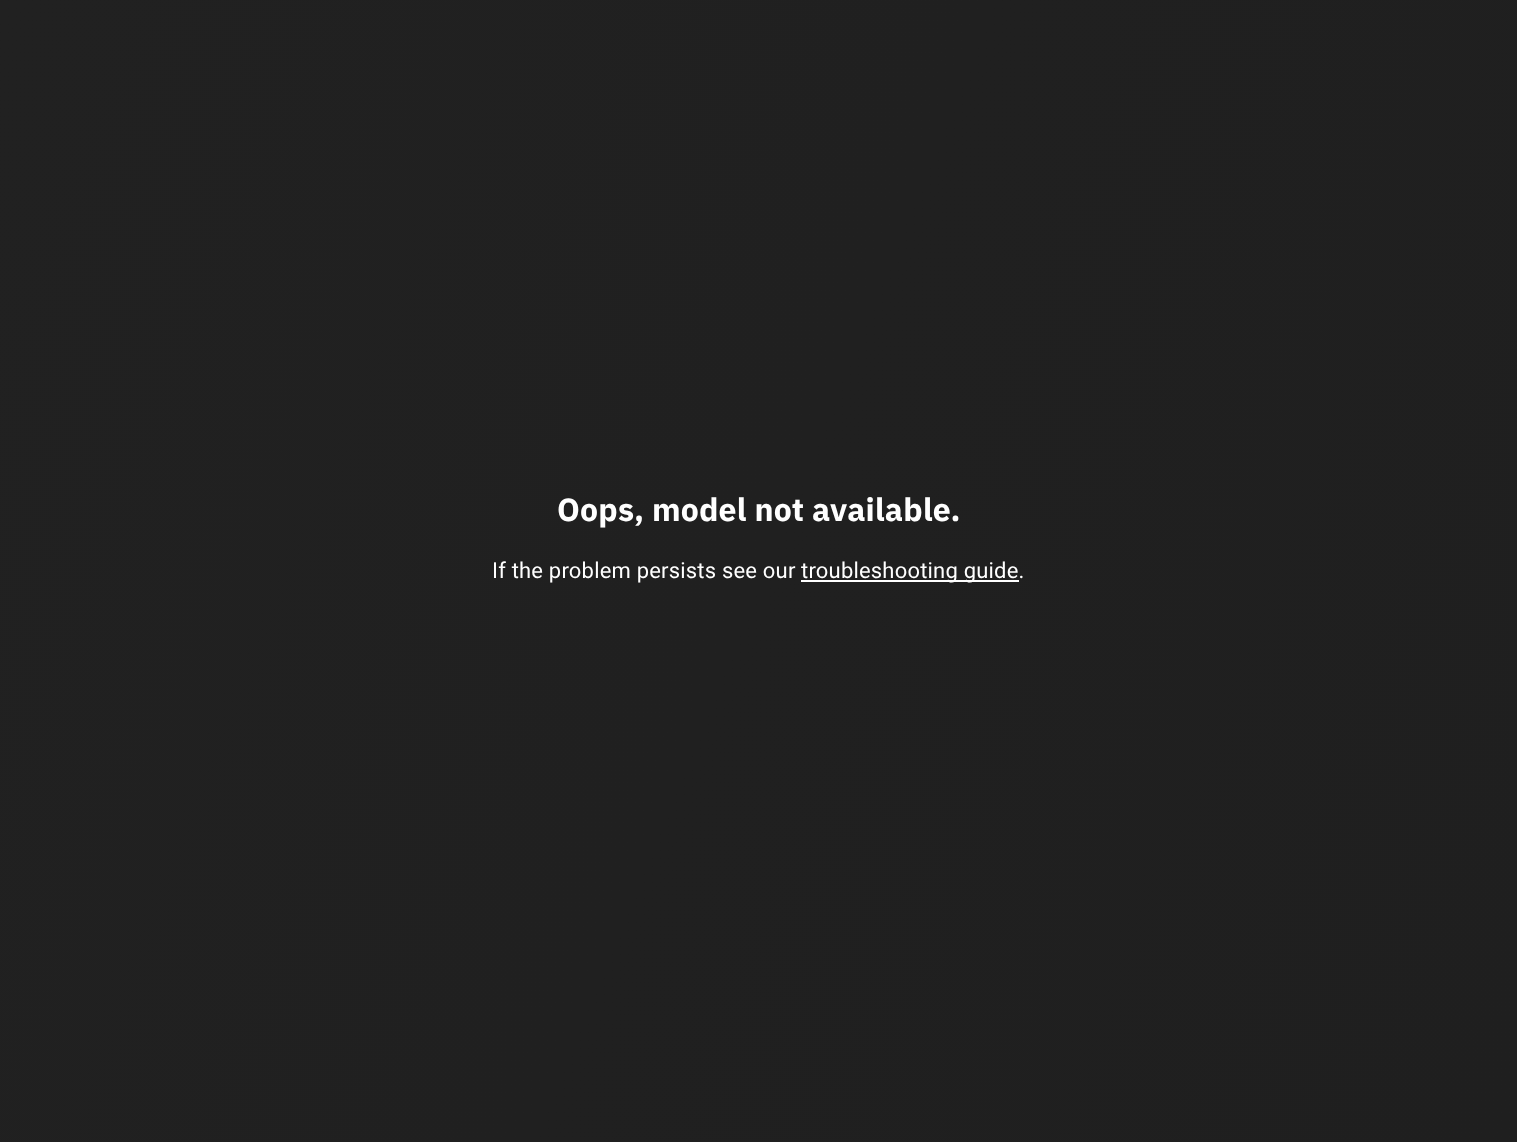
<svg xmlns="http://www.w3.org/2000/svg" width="1517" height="1142">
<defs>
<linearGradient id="g1" gradientUnits="userSpaceOnUse" x1="-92" y1="227" x2="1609" y2="915"><stop offset="0" stop-color="#212121"/><stop offset="1" stop-color="#1f1f1f"/></linearGradient>
</defs>
<rect width="100%" height="100%" fill="#fff"/>
<rect width="1517" height="1142" fill="url(#g1)"/>
<text x="557" y="521" style="font-family:IBM Plex Sans;font-size:32px;font-weight:bold;letter-spacing:0.2px;fill:#fff">Oops, model not available.</text>
<text x="492" y="578" style="font-family:Roboto;font-size:22px;letter-spacing:0.2px;fill:#fff">If the problem persists see our</text>
<rect x="801" y="580" width="218" height="2" fill="#fff"/>
<text x="801" y="578" style="font-family:Roboto;font-size:22px;letter-spacing:0.2px;fill:#fff">troubleshooting guide.</text>
</svg>
